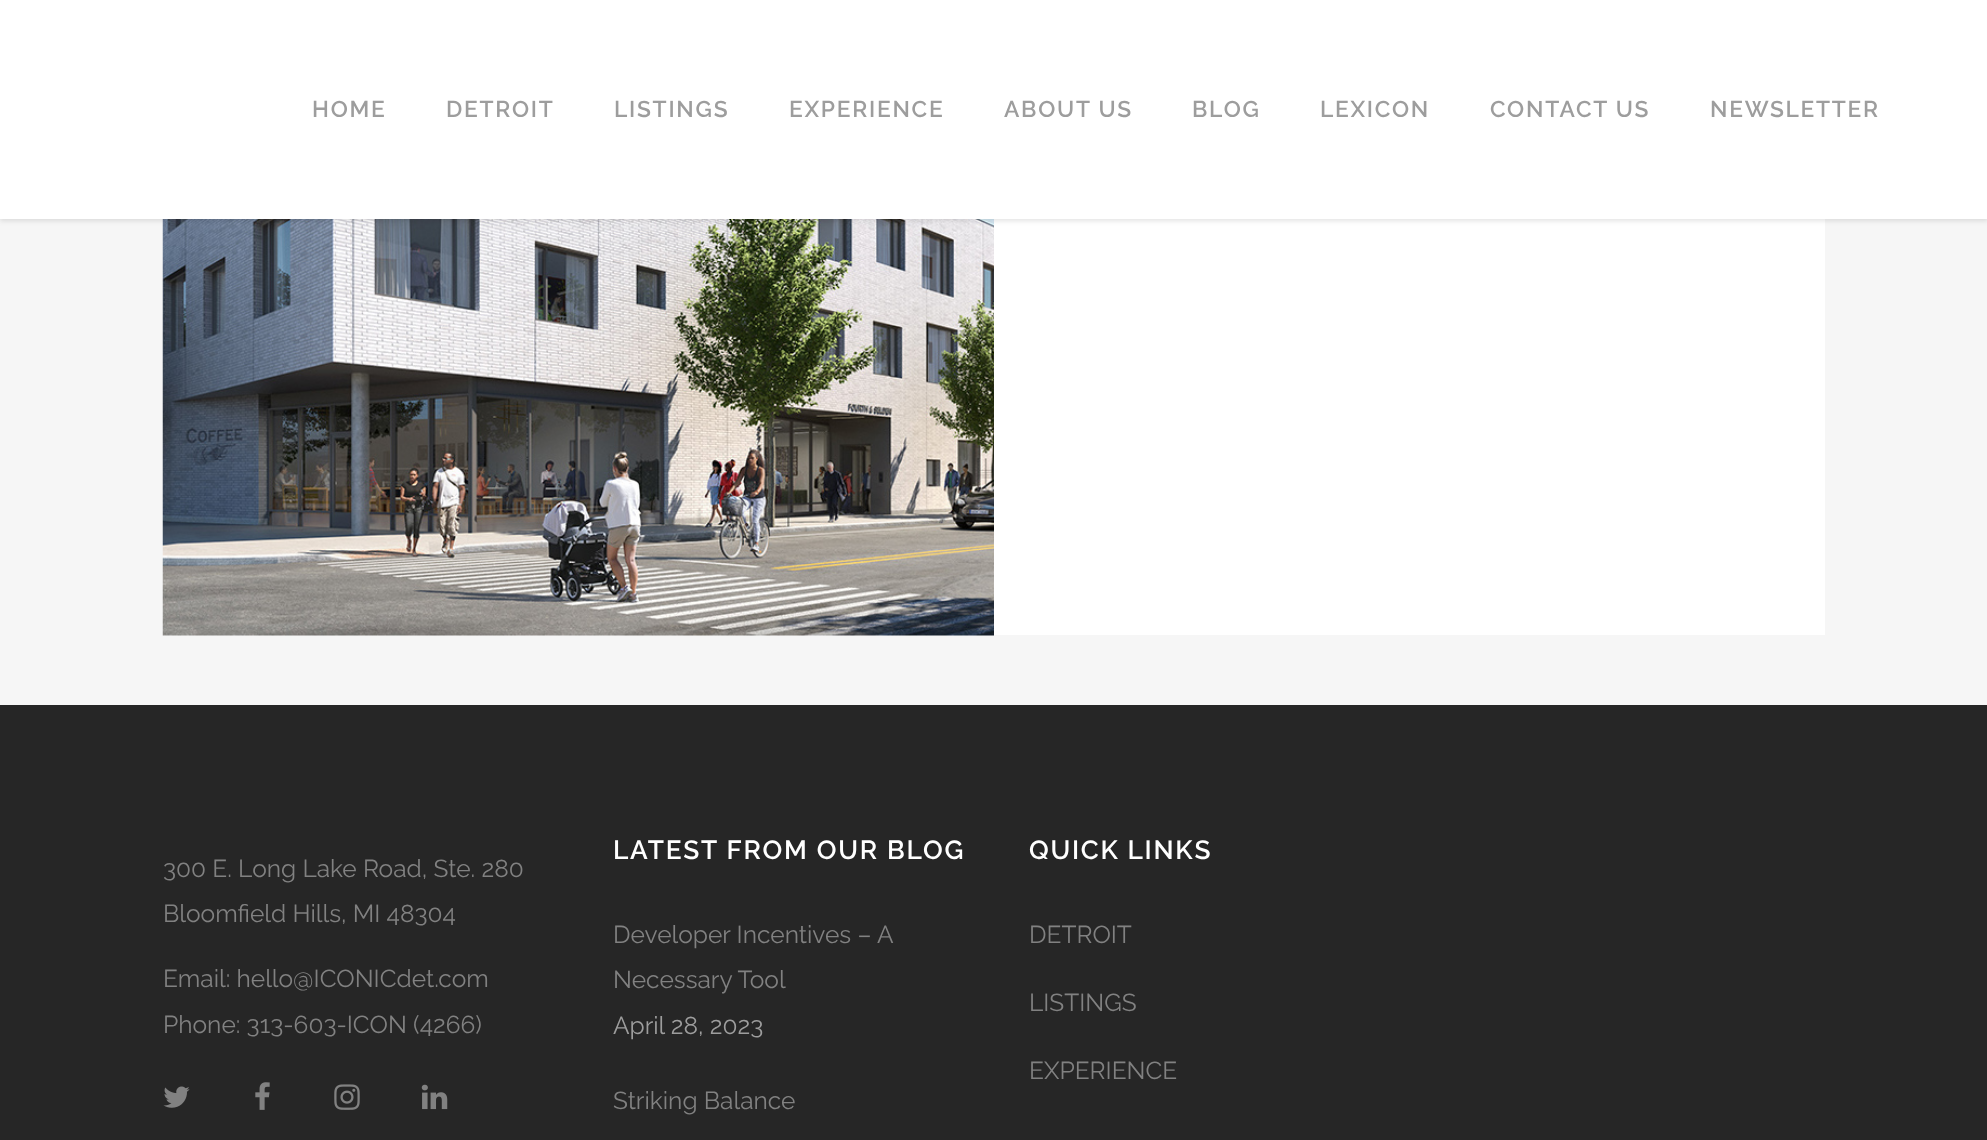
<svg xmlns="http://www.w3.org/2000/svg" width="1987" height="1140">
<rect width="100%" height="100%" fill="#f6f6f6"/>
<image x="162" y="219" width="832" height="417" href="media/1.png"/>
<rect x="994" y="219" width="831" height="416" fill="#fff"/>
<rect y="2" width="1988" height="219" fill="#0000001c" filter="blur(2.5px)"/>
<rect width="1987" height="219" fill="#fff"/>
<text x="312" y="117" style="font-family:Raleway;font-size:22.75px;font-weight:600;letter-spacing:1.75px;fill:#9d9d9d">HOME</text>
<text x="446" y="117" style="font-family:Raleway;font-size:22.75px;font-weight:600;letter-spacing:1.75px;fill:#9d9d9d">DETROIT</text>
<text x="614" y="117" style="font-family:Raleway;font-size:22.75px;font-weight:600;letter-spacing:1.75px;fill:#9d9d9d">LISTINGS</text>
<text x="789" y="117" style="font-family:Raleway;font-size:22.75px;font-weight:600;letter-spacing:1.75px;fill:#9d9d9d">EXPERIENCE</text>
<text x="1004" y="117" style="font-family:Raleway;font-size:22.75px;font-weight:600;letter-spacing:1.75px;fill:#9d9d9d">ABOUT US</text>
<text x="1192" y="117" style="font-family:Raleway;font-size:22.75px;font-weight:600;letter-spacing:1.75px;fill:#9d9d9d">BLOG</text>
<text x="1320" y="117" style="font-family:Raleway;font-size:22.75px;font-weight:600;letter-spacing:1.75px;fill:#9d9d9d">LEXICON</text>
<text x="1490" y="117" style="font-family:Raleway;font-size:22.75px;font-weight:600;letter-spacing:1.75px;fill:#9d9d9d">CONTACT US</text>
<text x="1710" y="117" style="font-family:Raleway;font-size:22.75px;font-weight:600;letter-spacing:1.75px;fill:#9d9d9d">NEWSLETTER</text>
<rect y="705" width="1987" height="435" fill="#262626"/>
<text x="163" y="877" style="font-family:Raleway;font-size:24.5px;fill:#818181">300 E. Long Lake Road, Ste. 280</text>
<text x="163" y="922" style="font-family:Raleway;font-size:24.5px;fill:#818181">Bloomfield Hills, MI 48304</text>
<text x="163" y="987" style="font-family:Raleway;font-size:24.5px;fill:#818181">Email: hello@ICONICdet.com</text>
<text x="163" y="1033" style="font-family:Raleway;font-size:24.5px;fill:#818181">Phone: 313-603-ICON (4266)</text>
<image x="163" y="1086" width="27" height="22" href="media/2.png"/>
<image x="255" y="1082" width="15" height="28" href="media/3.png"/>
<image x="334" y="1084" width="26" height="26" href="media/4.png"/>
<image x="421" y="1084" width="27" height="26" href="media/5.png"/>
<text x="613" y="859" style="font-family:Raleway;font-size:26.25px;font-weight:600;letter-spacing:1.75px;fill:#fff">LATEST FROM OUR BLOG</text>
<text x="613" y="943" style="font-family:Raleway;font-size:24.5px;fill:#818181">Developer Incentives – A</text>
<text x="613" y="988" style="font-family:Raleway;font-size:24.5px;fill:#818181">Necessary Tool</text>
<text x="613" y="1034" style="font-family:Raleway;font-size:24.5px;fill:#9d9d9d">April 28, 2023</text>
<text x="613" y="1109" style="font-family:Raleway;font-size:24.5px;fill:#818181">Striking Balance</text>
<text x="1029" y="859" style="font-family:Raleway;font-size:26.25px;font-weight:600;letter-spacing:1.75px;fill:#fff">QUICK LINKS</text>
<text x="1029" y="943" style="font-family:Raleway;font-size:24.5px;fill:#818181">DETROIT</text>
<text x="1029" y="1011" style="font-family:Raleway;font-size:24.5px;fill:#818181">LISTINGS</text>
<text x="1029" y="1079" style="font-family:Raleway;font-size:24.5px;fill:#818181">EXPERIENCE</text>
</svg>
